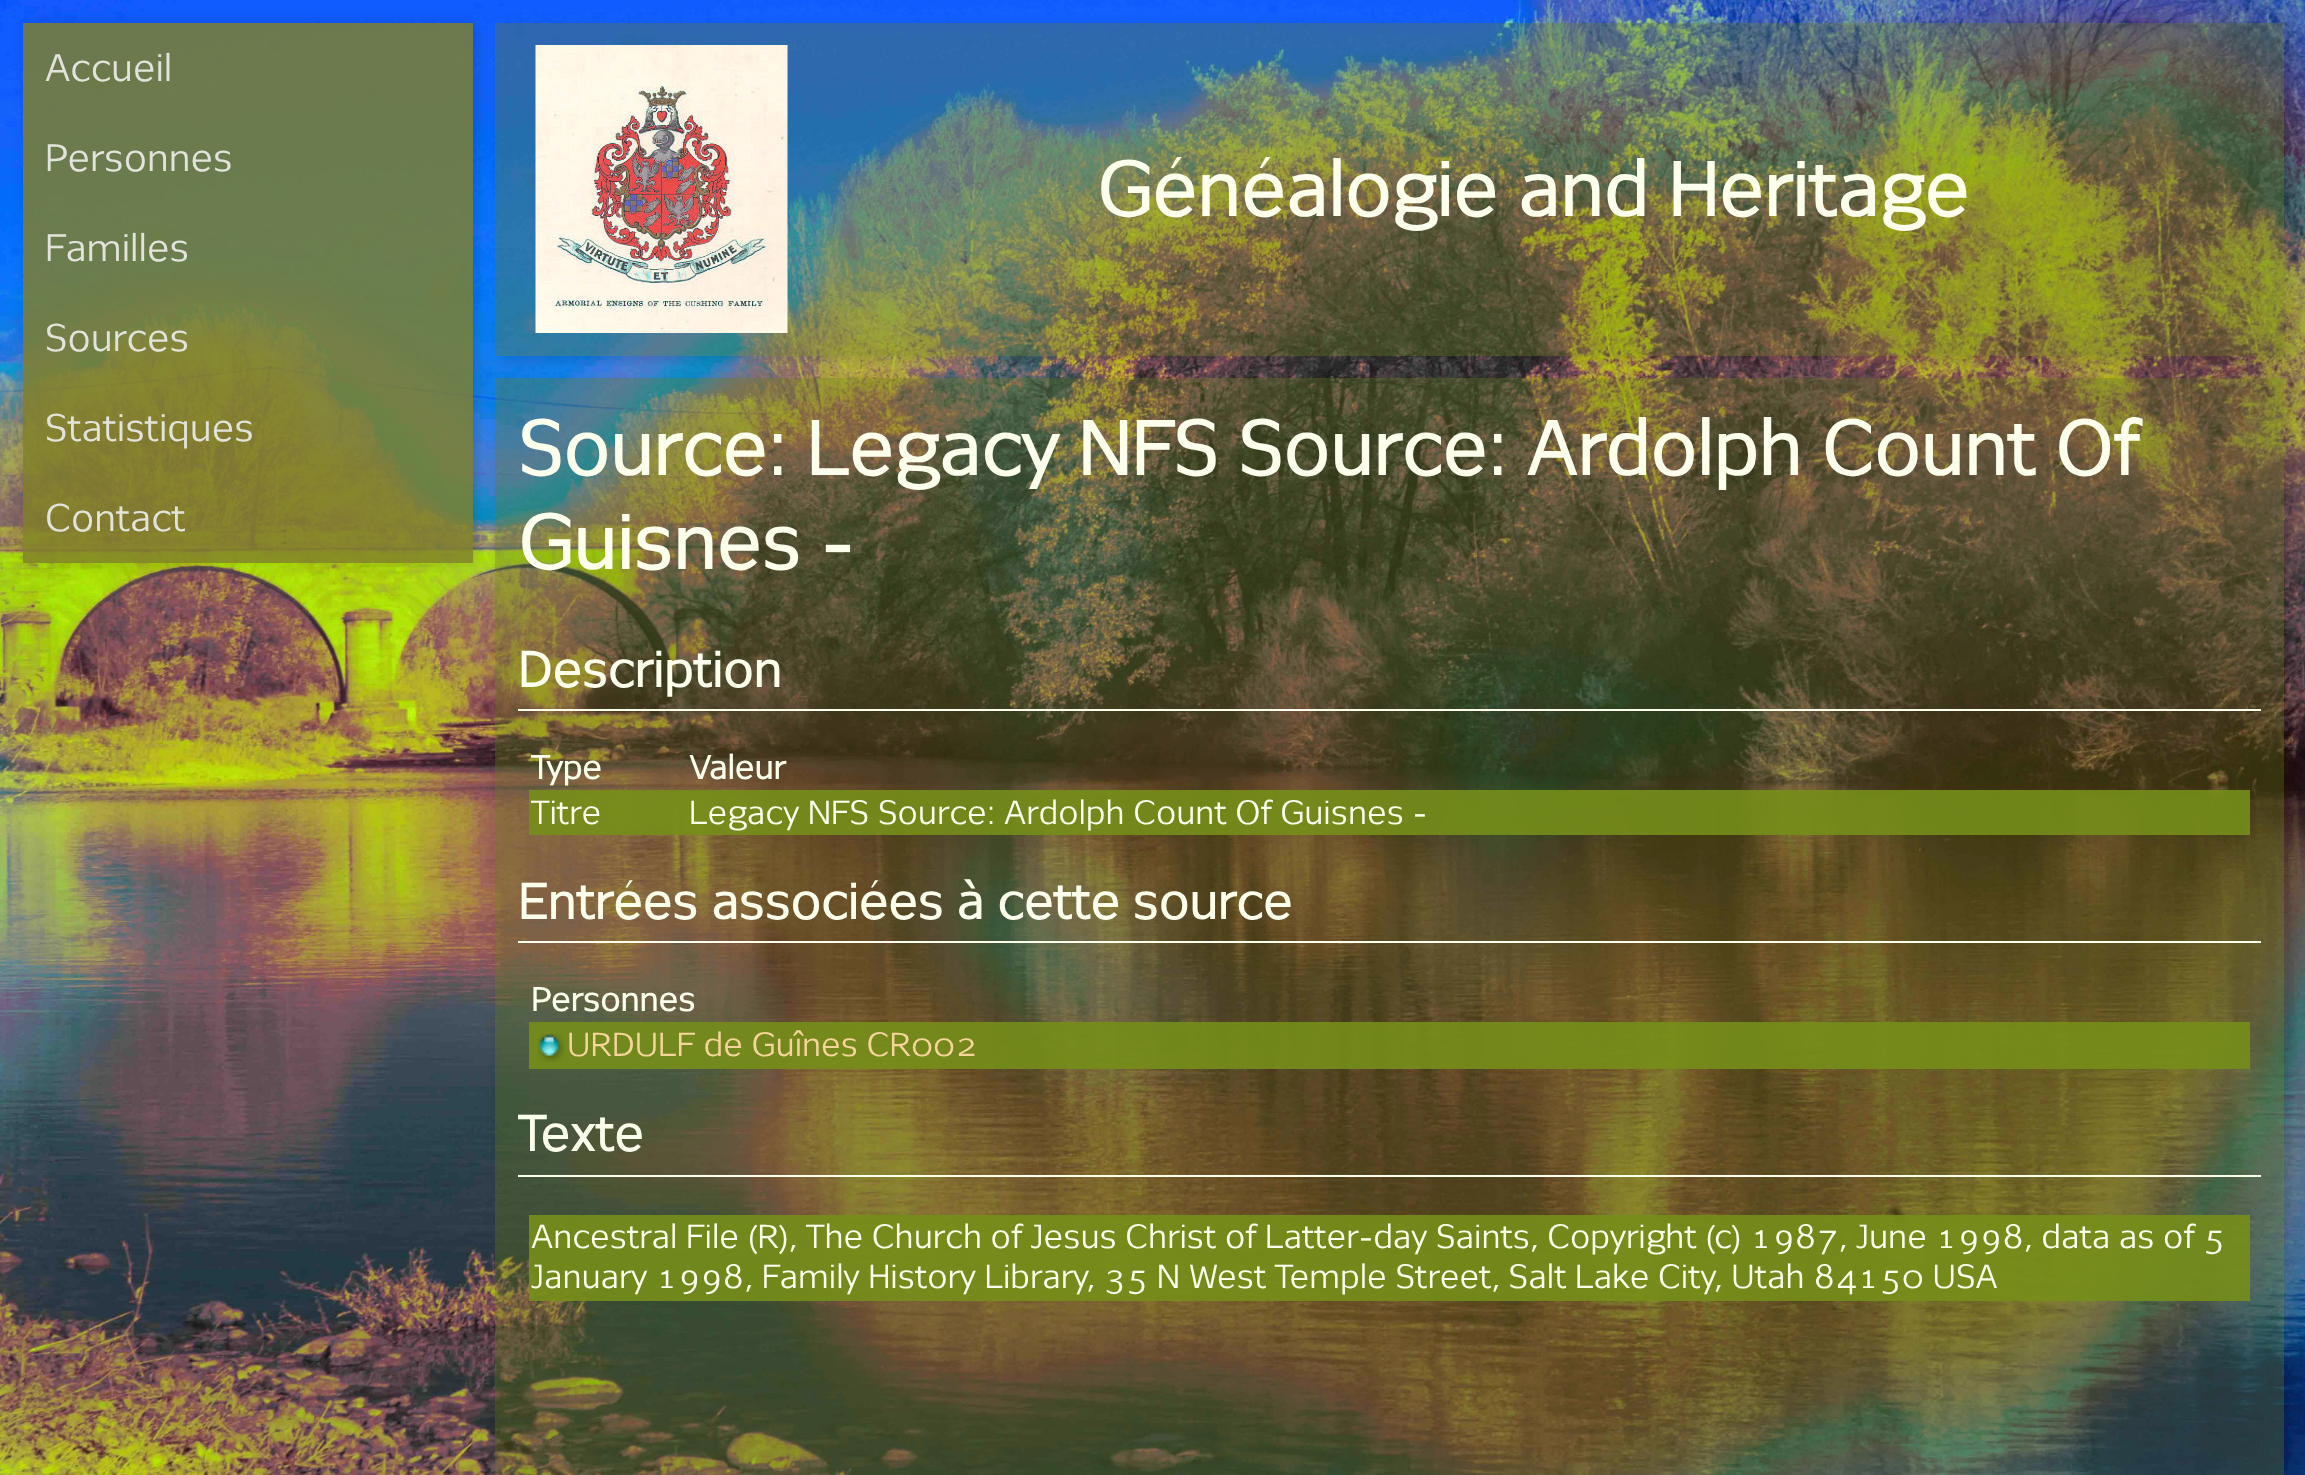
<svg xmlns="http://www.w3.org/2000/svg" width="2305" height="1475">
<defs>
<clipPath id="clip1"><path d="M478 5h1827v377h-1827zm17 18h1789v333h-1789z" clip-rule="evenodd"/></clipPath>
<clipPath id="clip2"><path d="M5 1h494v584h-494zm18 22h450v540h-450z" clip-rule="evenodd"/></clipPath>
<clipPath id="clip3"><path d="M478 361h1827v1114h-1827zm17 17h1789v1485h-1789z" clip-rule="evenodd"/></clipPath>
<clipPath id="clip4"><rect x="518" y="1103" width="1743" height="209"/></clipPath>
</defs>
<rect width="100%" height="100%" fill="#fff"/>
<image x="0" y="0" width="2305" height="1475" href="media/1.png"/>
<g clip-path="url(#clip1)">
<rect x="500" y="27" width="1788" height="333" fill="#00000026" filter="blur(7px)"/>
</g>
<rect x="495" y="23" width="1789" height="333" fill="#63771657"/>
<g clip-path="url(#clip2)">
<rect x="27" y="23" width="450" height="540" fill="#00000026" filter="blur(7px)"/>
</g>
<rect x="23" y="23" width="450" height="540" fill="#80802ad4"/>
<text x="45" y="81" style="font-family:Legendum;font-size:36px;fill:#e2e4db">Accueil</text>
<text x="45" y="171" style="font-family:Legendum;font-size:36px;fill:#e2e4db">Personnes</text>
<text x="45" y="261" style="font-family:Legendum;font-size:36px;fill:#e2e4db">Familles</text>
<text x="45" y="351" style="font-family:Legendum;font-size:36px;fill:#e2e4db">Sources</text>
<text x="45" y="441" style="font-family:Legendum;font-size:36px;fill:#e2e4db">Statistiques</text>
<text x="45" y="531" style="font-family:Legendum;font-size:36px;fill:#e2e4db">Contact</text>
<image x="535" y="45" width="253" height="288" href="media/2.png"/>
<text x="1097" y="216" style="font-family:Legendum;font-size:72px;font-weight:bold;fill:#fbffeb">Généalogie and Heritage</text>
<g clip-path="url(#clip3)">
<rect x="500" y="383" width="1788" height="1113" fill="#00000026" filter="blur(7px)"/>
</g>
<rect x="495" y="378" width="1789" height="1097" fill="#63771657"/>
<text x="518" y="475" style="font-family:Legendum;font-size:72px;font-weight:bold;fill:#fbffeb">Source: Legacy NFS Source: Ardolph Count Of</text>
<text x="518" y="569" style="font-family:Legendum;font-size:72px;font-weight:bold;fill:#fbffeb">Guisnes -</text>
<rect x="518" y="709" width="1743" height="2" fill="#fbffeb"/>
<text x="518" y="687" style="font-family:Legendum;font-size:47.25px;font-weight:bold;fill:#fbffeb">Description</text>
<text x="531" y="779" style="font-family:Legendum;font-size:31.5px;font-weight:bold;fill:#fbffeb">Type</text>
<text x="689" y="779" style="font-family:Legendum;font-size:31.5px;font-weight:bold;fill:#fbffeb">Valeur</text>
<rect x="529" y="790" width="157" height="45" fill="#768e1ae6"/>
<text x="531" y="824" style="font-family:Legendum;font-size:31.5px;fill:#fbffeb">Titre</text>
<rect x="686" y="790" width="1564" height="45" fill="#768e1ae6"/>
<text x="689" y="824" style="font-family:Legendum;font-size:31.5px;fill:#fbffeb">Legacy NFS Source: Ardolph Count Of Guisnes -</text>
<rect x="518" y="941" width="1743" height="2" fill="#fbffeb"/>
<text x="518" y="919" style="font-family:Legendum;font-size:47.25px;font-weight:bold;fill:#fbffeb">Entrées associées à cette source</text>
<text x="531" y="1011" style="font-family:Legendum;font-size:31.5px;font-weight:bold;fill:#fbffeb">Personnes</text>
<rect x="529" y="1022" width="1721" height="47" fill="#768e1ae6"/>
<image x="537" y="1033" width="28" height="29" href="media/3.png"/>
<text x="567" y="1056" style="font-family:Legendum;font-size:31.5px;fill:#f6d59b">URDULF de Guînes CR002</text>
<rect x="518" y="1175" width="1743" height="2" fill="#fbffeb"/>
<g clip-path="url(#clip4)">
<text x="518" y="1151" style="font-family:Legendum;font-size:47.25px;font-weight:bold;fill:#fbffeb">Texte</text>
</g>
<rect x="529" y="1215" width="1721" height="86" fill="#768e1ae6"/>
<text x="531" y="1248" style="font-family:Legendum;font-size:31.5px;fill:#fbffeb">Ancestral File (R), The Church of Jesus Christ of Latter-day Saints, Copyright (c) 1987, June 1998, data as of 5</text>
<text x="531" y="1288" style="font-family:Legendum;font-size:31.5px;fill:#fbffeb">January 1998, Family History Library, 35 N West Temple Street, Salt Lake City, Utah 84150 USA</text>
</svg>
